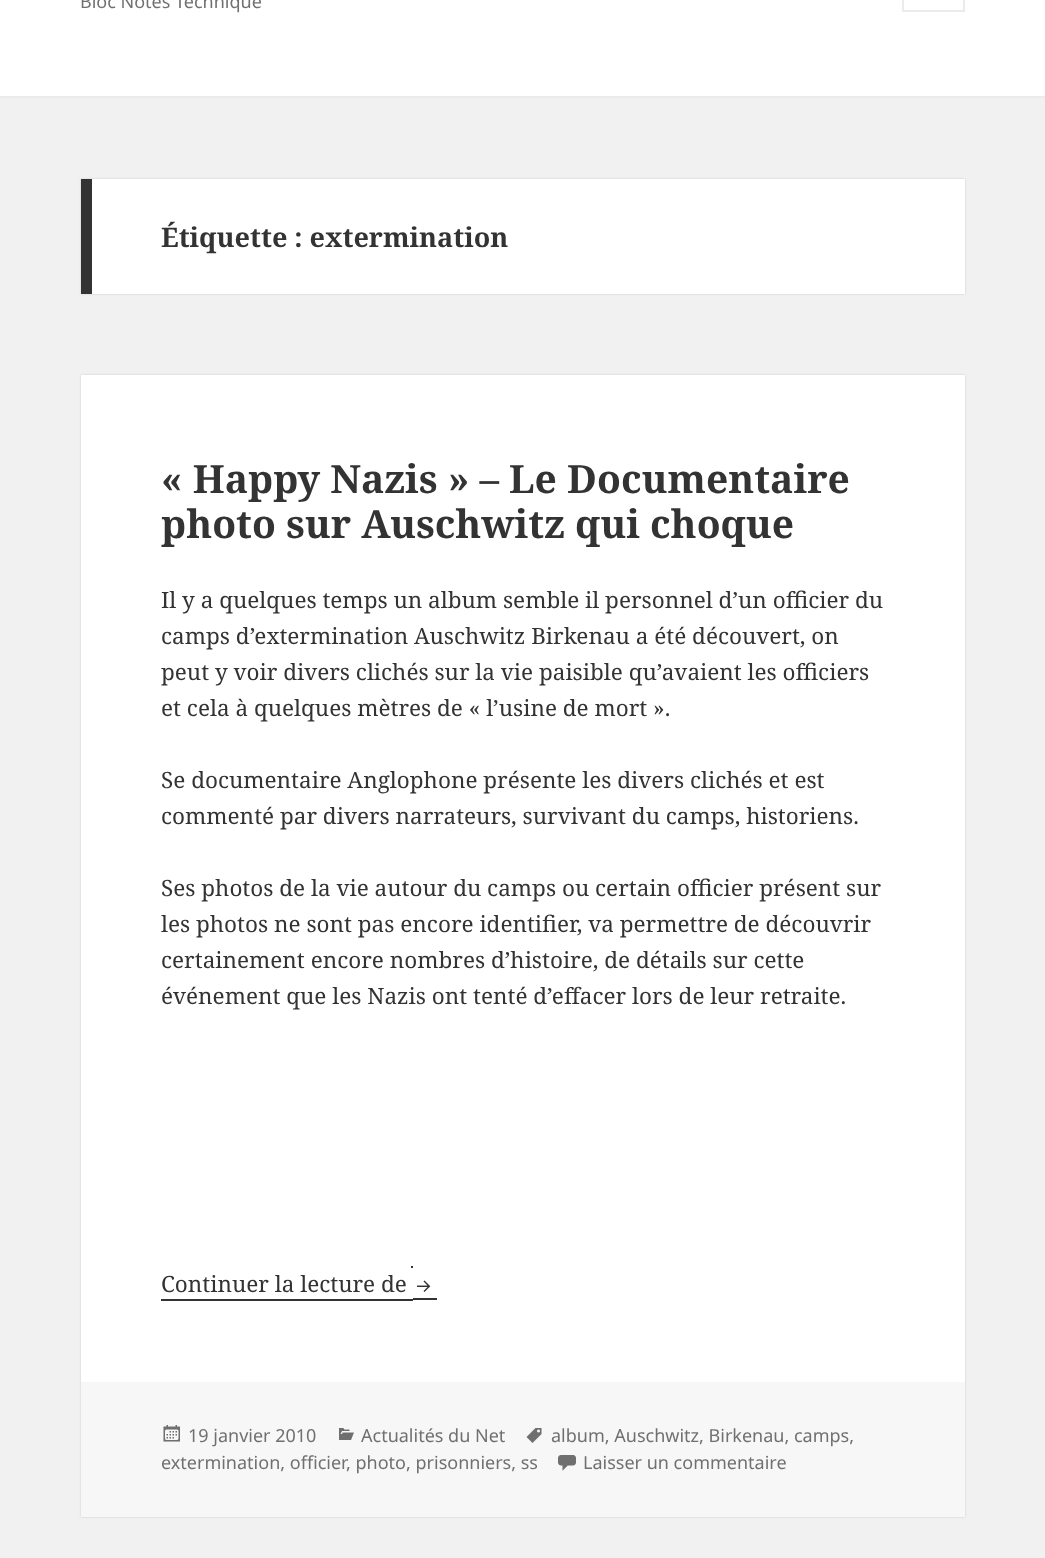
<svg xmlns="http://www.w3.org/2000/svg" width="1045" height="1558">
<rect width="100%" height="100%" fill="#f1f1f1"/>
<rect width="1045" height="96" fill="#fff"/>
<rect y="96" width="1045" height="2" fill="#ebebeb"/>
<text x="80" y="8" style="font-family:Noto Sans;font-size:18px;fill:#707070">Bloc Notes Technique</text>
<rect x="903" y="-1" width="61" height="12" fill="none" stroke="#ebebeb" stroke-width="2"/>
<rect x="81" y="179" width="884" height="115" fill="#00000026" filter="blur(1px)"/>
<rect x="92" y="179" width="873" height="115" fill="#fff"/>
<rect x="81" y="179" width="11" height="115" fill="#333"/>
<text x="161" y="247" style="font-family:Noto Serif;font-size:27px;font-weight:bold;fill:#333">Étiquette : extermination</text>
<rect x="81" y="375" width="884" height="1142" fill="#00000026" filter="blur(1px)"/>
<rect x="81" y="375" width="884" height="1007" fill="#fff"/>
<text x="161" y="493" style="font-family:Noto Serif;font-size:39px;font-weight:bold;fill:#333">« Happy Nazis » – Le Documentaire</text>
<text x="161" y="538" style="font-family:Noto Serif;font-size:39px;font-weight:bold;fill:#333">photo sur Auschwitz qui choque</text>
<text x="161" y="608" style="font-family:Noto Serif;font-size:22.5px;fill:#333">Il y a quelques temps un album semble il personnel d’un officier du</text>
<text x="161" y="644" style="font-family:Noto Serif;font-size:22.5px;fill:#333">camps d’extermination Auschwitz Birkenau a été découvert, on</text>
<text x="161" y="680" style="font-family:Noto Serif;font-size:22.5px;fill:#333">peut y voir divers clichés sur la vie paisible qu’avaient les officiers</text>
<text x="161" y="716" style="font-family:Noto Serif;font-size:22.5px;fill:#333">et cela à quelques mètres de « l’usine de mort ».</text>
<text x="161" y="788" style="font-family:Noto Serif;font-size:22.5px;fill:#333">Se documentaire Anglophone présente les divers clichés et est</text>
<text x="161" y="824" style="font-family:Noto Serif;font-size:22.5px;fill:#333">commenté par divers narrateurs, survivant du camps, historiens.</text>
<text x="161" y="896" style="font-family:Noto Serif;font-size:22.5px;fill:#333">Ses photos de la vie autour du camps ou certain officier présent sur</text>
<text x="161" y="932" style="font-family:Noto Serif;font-size:22.5px;fill:#333">les photos ne sont pas encore identifier, va permettre de découvrir</text>
<text x="161" y="968" style="font-family:Noto Serif;font-size:22.5px;fill:#333">certainement encore nombres d’histoire, de détails sur cette</text>
<text x="161" y="1004" style="font-family:Noto Serif;font-size:22.5px;fill:#333">événement que les Nazis ont tenté d’effacer lors de leur retraite.</text>
<rect x="161" y="1299" width="252" height="2" fill="#333"/>
<rect x="411" y="1266" width="2" height="2" fill="#333"/>
<rect x="413" y="1298" width="24" height="2" fill="#333"/>
<text x="161" y="1292" style="font-family:Noto Serif;font-size:22.5px;fill:#333">Continuer la lecture de</text>
<image x="417" y="1280" width="14" height="12" href="media/1.png"/>
<rect x="81" y="1382" width="884" height="135" fill="#f7f7f7"/>
<image x="526" y="1428" width="16" height="15" href="media/2.png"/>
<text x="551" y="1442" style="font-family:Noto Sans;font-size:18px;fill:#707070">album, Auschwitz, Birkenau, camps,</text>
<text x="161" y="1469" style="font-family:Noto Sans;font-size:18px;fill:#707070">extermination, officier</text>
<text x="346" y="1469" style="font-family:Noto Sans;font-size:18px;fill:#707070">, photo, prisonniers, ss</text>
<image x="163" y="1425" width="17" height="17" href="media/3.png"/>
<text x="188" y="1442" style="font-family:Noto Sans;font-size:18px;fill:#707070">19 janvier 2010</text>
<image x="339" y="1428" width="15" height="12" href="media/4.png"/>
<text x="361" y="1442" style="font-family:Noto Sans;font-size:18px;fill:#707070">Actualités du Net</text>
<image x="558" y="1455" width="18" height="16" href="media/5.png"/>
<text x="583" y="1469" style="font-family:Noto Sans;font-size:18px;fill:#707070">Laisser un commentaire</text>
</svg>
